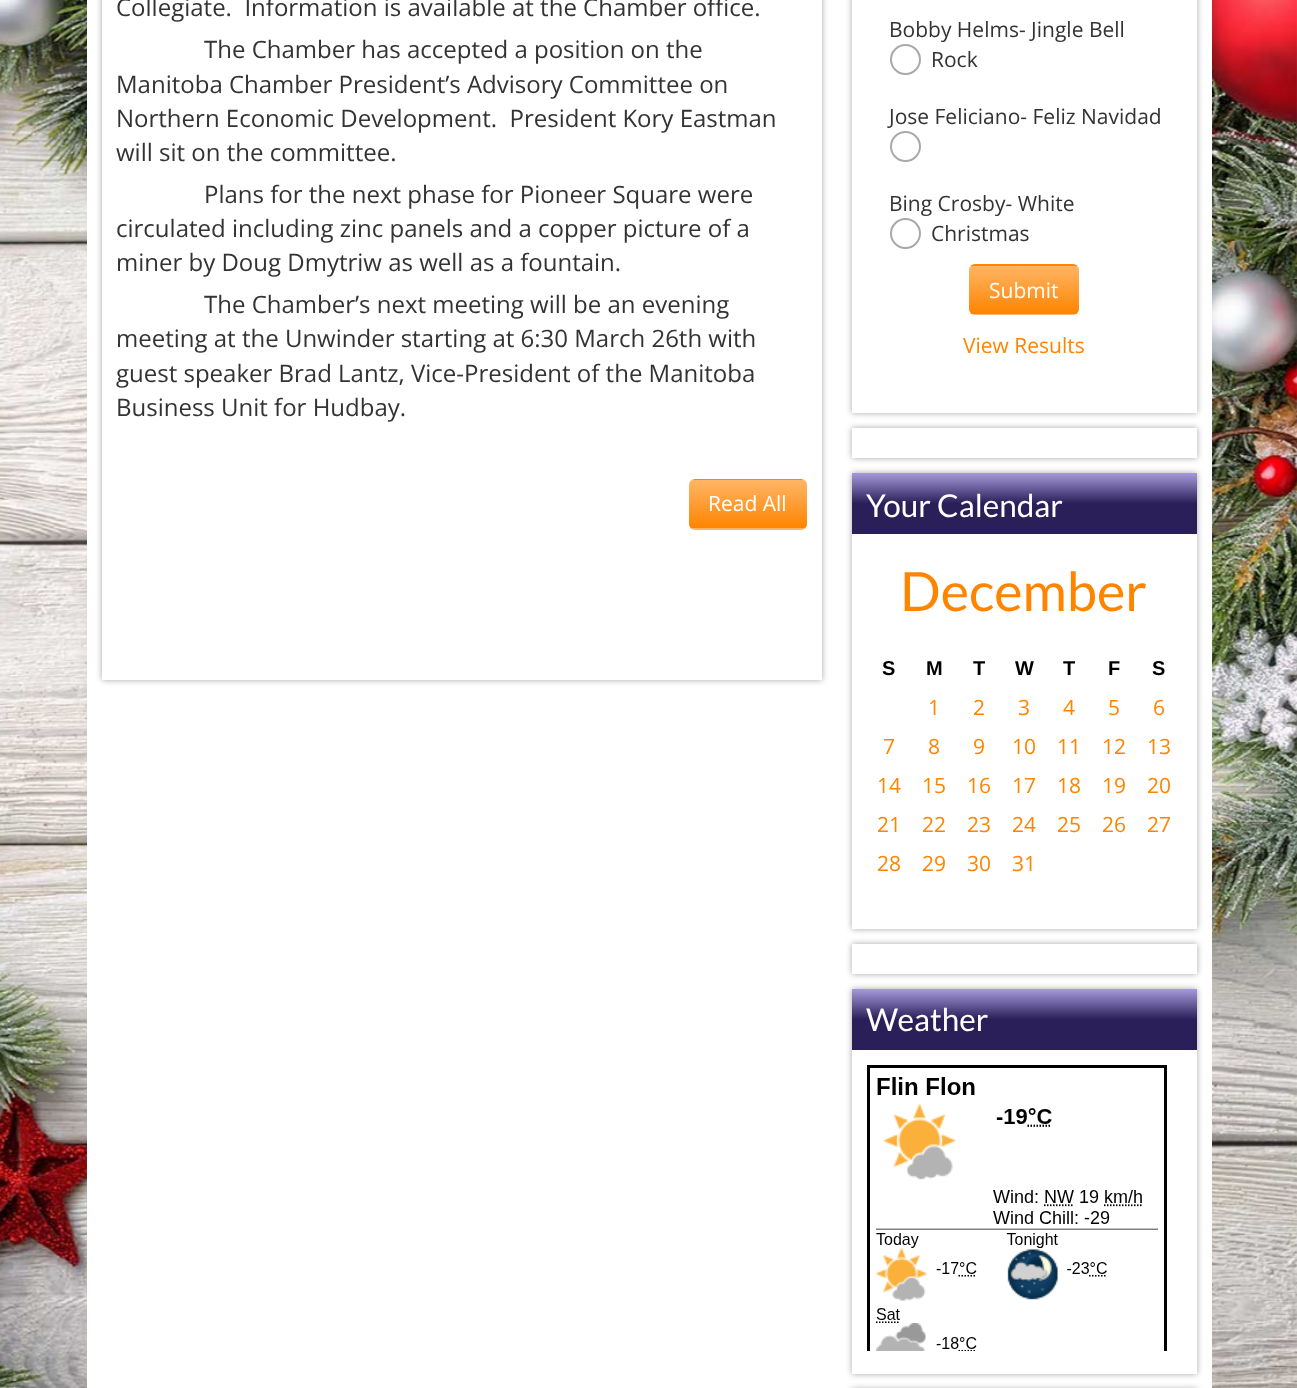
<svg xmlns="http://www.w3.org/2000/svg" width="1297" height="1388">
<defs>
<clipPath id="clip1"><rect x="689" y="479" width="118" height="51" rx="6"/></clipPath>
<linearGradient id="g1" gradientUnits="userSpaceOnUse" x1="748" y1="432" x2="748" y2="480"><stop offset="0" stop-color="#ffb566"/><stop offset="1" stop-color="#ff8400"/></linearGradient>
<linearGradient id="g2" gradientUnits="userSpaceOnUse" x1="748" y1="480" x2="748" y2="528"><stop offset="0" stop-color="#ffb566"/><stop offset="1" stop-color="#ff8400"/></linearGradient>
<linearGradient id="g3" gradientUnits="userSpaceOnUse" x1="748" y1="528" x2="748" y2="576"><stop offset="0" stop-color="#ffb566"/><stop offset="1" stop-color="#ff8400"/></linearGradient>
<clipPath id="clip2"><rect x="969" y="264" width="110" height="51" rx="6"/></clipPath>
<linearGradient id="g4" gradientUnits="userSpaceOnUse" x1="1024" y1="218" x2="1024" y2="266"><stop offset="0" stop-color="#ffb566"/><stop offset="1" stop-color="#ff8400"/></linearGradient>
<linearGradient id="g5" gradientUnits="userSpaceOnUse" x1="1024" y1="266" x2="1024" y2="314"><stop offset="0" stop-color="#ffb566"/><stop offset="1" stop-color="#ff8400"/></linearGradient>
<linearGradient id="g6" gradientUnits="userSpaceOnUse" x1="1024" y1="314" x2="1024" y2="362"><stop offset="0" stop-color="#ffb566"/><stop offset="1" stop-color="#ff8400"/></linearGradient>
<linearGradient id="g7" gradientUnits="userSpaceOnUse" x1="1025" y1="473" x2="1025" y2="534"><stop offset="0" stop-color="#a79adc"/><stop offset="0.5" stop-color="#2a1f58"/></linearGradient>
<clipPath id="clip3"><path d="M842 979h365v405h-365zm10 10h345v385h-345z" clip-rule="evenodd"/></clipPath>
<linearGradient id="g8" gradientUnits="userSpaceOnUse" x1="1025" y1="989" x2="1025" y2="1050"><stop offset="0" stop-color="#a79adc"/><stop offset="0.5" stop-color="#2a1f58"/></linearGradient>
</defs>
<rect width="100%" height="100%" fill="#fff"/>
<image x="0" y="0" width="1297" height="1388" href="media/1.png"/>
<rect x="87" width="1125" height="1388" fill="#fff"/>
<rect x="102" y="-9" width="720" height="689" fill="#00000059" filter="blur(3px)"/>
<rect x="102" width="720" height="680" fill="#fff"/>
<text x="116" y="16" style="font-family:Open Sans;font-size:24px;fill:#333" xml:space="preserve">Collegiate.  Information is available at the Chamber office.</text>
<text x="204" y="58" style="font-family:Open Sans;font-size:24px;fill:#333">The Chamber has accepted a position on the</text>
<text x="116" y="93" style="font-family:Open Sans;font-size:24px;fill:#333">Manitoba Chamber President’s Advisory Committee on</text>
<text x="116" y="127" style="font-family:Open Sans;font-size:24px;fill:#333" xml:space="preserve">Northern Economic Development.  President Kory Eastman</text>
<text x="116" y="161" style="font-family:Open Sans;font-size:24px;fill:#333">will sit on the committee.</text>
<text x="204" y="203" style="font-family:Open Sans;font-size:24px;fill:#333">Plans for the next phase for Pioneer Square were</text>
<text x="116" y="237" style="font-family:Open Sans;font-size:24px;fill:#333">circulated including zinc panels and a copper picture of a</text>
<text x="116" y="271" style="font-family:Open Sans;font-size:24px;fill:#333">miner by Doug Dmytriw as well as a fountain.</text>
<text x="204" y="313" style="font-family:Open Sans;font-size:24px;fill:#333">The Chamber’s next meeting will be an evening</text>
<text x="116" y="347" style="font-family:Open Sans;font-size:24px;fill:#333">meeting at the Unwinder starting at 6:30 March 26th with</text>
<text x="116" y="382" style="font-family:Open Sans;font-size:24px;fill:#333">guest speaker Brad Lantz, Vice-President of the Manitoba</text>
<text x="116" y="416" style="font-family:Open Sans;font-size:24px;fill:#333">Business Unit for Hudbay.</text>
<g clip-path="url(#clip1)">
<rect x="689" y="479" width="118" height="1" fill="url(#g1)"/>
<rect x="689" y="480" width="118" height="48" fill="url(#g2)"/>
<rect x="689" y="528" width="118" height="2" fill="url(#g3)"/>
</g>
<text x="708" y="511" style="font-family:Open Sans;font-size:21px;fill:#fff">Read All</text>
<rect x="852" y="-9" width="345" height="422" fill="#00000059" filter="blur(3px)"/>
<rect x="852" width="345" height="413" fill="#fff"/>
<text x="889" y="37" style="font-family:Open Sans;font-size:21px;fill:#333">Bobby Helms- Jingle Bell</text>
<circle cx="905.5" cy="59.5" r="14.5" fill="none" stroke="#a9a9a9" stroke-width="2"/>
<text x="931" y="67" style="font-family:Open Sans;font-size:21px;fill:#333">Rock</text>
<text x="889" y="124" style="font-family:Open Sans;font-size:21px;fill:#333">Jose Feliciano- Feliz Navidad</text>
<circle cx="905.5" cy="146.5" r="14.5" fill="none" stroke="#a9a9a9" stroke-width="2"/>
<text x="889" y="211" style="font-family:Open Sans;font-size:21px;fill:#333">Bing Crosby- White</text>
<circle cx="905.5" cy="233.5" r="14.5" fill="none" stroke="#a9a9a9" stroke-width="2"/>
<text x="931" y="241" style="font-family:Open Sans;font-size:21px;fill:#333">Christmas</text>
<g clip-path="url(#clip2)">
<rect x="969" y="264" width="110" height="2" fill="url(#g4)"/>
<rect x="969" y="266" width="110" height="48" fill="url(#g5)"/>
<rect x="969" y="314" width="110" height="1" fill="url(#g6)"/>
</g>
<text x="989" y="298" style="font-family:Open Sans;font-size:21px;fill:#fff">Submit</text>
<text x="963" y="353" style="font-family:Open Sans;font-size:21px;fill:#ff8400">View Results</text>
<rect x="852" y="428" width="345" height="30" fill="#00000059" filter="blur(3px)"/>
<rect x="852" y="428" width="345" height="30" fill="#fff"/>
<rect x="852" y="473" width="345" height="456" fill="#00000059" filter="blur(3px)"/>
<rect x="852" y="473" width="345" height="61" fill="url(#g7)"/>
<text x="866" y="517" style="font-family:Lato;font-size:31.5px;fill:#fff">Your Calendar</text>
<rect x="852" y="534" width="345" height="395" fill="#fff"/>
<text x="900" y="611" style="font-family:Lato;font-size:54px;fill:#ff8400">December</text>
<text x="882" y="675" style="font-family:Liberation Sans;font-size:20px;font-weight:bold;fill:#000">S</text>
<text x="926" y="675" style="font-family:Liberation Sans;font-size:20px;font-weight:bold;fill:#000">M</text>
<text x="973" y="675" style="font-family:Liberation Sans;font-size:20px;font-weight:bold;fill:#000">T</text>
<text x="1015" y="675" style="font-family:Liberation Sans;font-size:20px;font-weight:bold;fill:#000">W</text>
<text x="1063" y="675" style="font-family:Liberation Sans;font-size:20px;font-weight:bold;fill:#000">T</text>
<text x="1108" y="675" style="font-family:Liberation Sans;font-size:20px;font-weight:bold;fill:#000">F</text>
<text x="1152" y="675" style="font-family:Liberation Sans;font-size:20px;font-weight:bold;fill:#000">S</text>
<text x="928" y="715" style="font-family:Open Sans;font-size:21px;fill:#ff8400">1</text>
<text x="973" y="715" style="font-family:Open Sans;font-size:21px;fill:#ff8400">2</text>
<text x="1018" y="715" style="font-family:Open Sans;font-size:21px;fill:#ff8400">3</text>
<text x="1063" y="715" style="font-family:Open Sans;font-size:21px;fill:#ff8400">4</text>
<text x="1108" y="715" style="font-family:Open Sans;font-size:21px;fill:#ff8400">5</text>
<text x="1153" y="715" style="font-family:Open Sans;font-size:21px;fill:#ff8400">6</text>
<text x="883" y="754" style="font-family:Open Sans;font-size:21px;fill:#ff8400">7</text>
<text x="928" y="754" style="font-family:Open Sans;font-size:21px;fill:#ff8400">8</text>
<text x="973" y="754" style="font-family:Open Sans;font-size:21px;fill:#ff8400">9</text>
<text x="1012" y="754" style="font-family:Open Sans;font-size:21px;fill:#ff8400">10</text>
<text x="1057" y="754" style="font-family:Open Sans;font-size:21px;fill:#ff8400">11</text>
<text x="1102" y="754" style="font-family:Open Sans;font-size:21px;fill:#ff8400">12</text>
<text x="1147" y="754" style="font-family:Open Sans;font-size:21px;fill:#ff8400">13</text>
<text x="877" y="793" style="font-family:Open Sans;font-size:21px;fill:#ff8400">14</text>
<text x="922" y="793" style="font-family:Open Sans;font-size:21px;fill:#ff8400">15</text>
<text x="967" y="793" style="font-family:Open Sans;font-size:21px;fill:#ff8400">16</text>
<text x="1012" y="793" style="font-family:Open Sans;font-size:21px;fill:#ff8400">17</text>
<text x="1057" y="793" style="font-family:Open Sans;font-size:21px;fill:#ff8400">18</text>
<text x="1102" y="793" style="font-family:Open Sans;font-size:21px;fill:#ff8400">19</text>
<text x="1147" y="793" style="font-family:Open Sans;font-size:21px;fill:#ff8400">20</text>
<text x="877" y="832" style="font-family:Open Sans;font-size:21px;fill:#ff8400">21</text>
<text x="922" y="832" style="font-family:Open Sans;font-size:21px;fill:#ff8400">22</text>
<text x="967" y="832" style="font-family:Open Sans;font-size:21px;fill:#ff8400">23</text>
<text x="1012" y="832" style="font-family:Open Sans;font-size:21px;fill:#ff8400">24</text>
<text x="1057" y="832" style="font-family:Open Sans;font-size:21px;fill:#ff8400">25</text>
<text x="1102" y="832" style="font-family:Open Sans;font-size:21px;fill:#ff8400">26</text>
<text x="1147" y="832" style="font-family:Open Sans;font-size:21px;fill:#ff8400">27</text>
<text x="877" y="871" style="font-family:Open Sans;font-size:21px;fill:#ff8400">28</text>
<text x="922" y="871" style="font-family:Open Sans;font-size:21px;fill:#ff8400">29</text>
<text x="967" y="871" style="font-family:Open Sans;font-size:21px;fill:#ff8400">30</text>
<text x="1012" y="871" style="font-family:Open Sans;font-size:21px;fill:#ff8400">31</text>
<rect x="852" y="944" width="345" height="30" fill="#00000059" filter="blur(3px)"/>
<rect x="852" y="944" width="345" height="30" fill="#fff"/>
<g clip-path="url(#clip3)">
<rect x="852" y="989" width="345" height="385" fill="#00000059" filter="blur(3px)"/>
</g>
<rect x="852" y="989" width="345" height="61" fill="url(#g8)"/>
<text x="866" y="1031" style="font-family:Lato;font-size:31.5px;fill:#fff">Weather</text>
<image x="867" y="1065" width="300" height="286" href="media/2.png"/>
<rect x="852" y="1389" width="345" height="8" fill="#00000059" filter="blur(3px)"/>
</svg>
